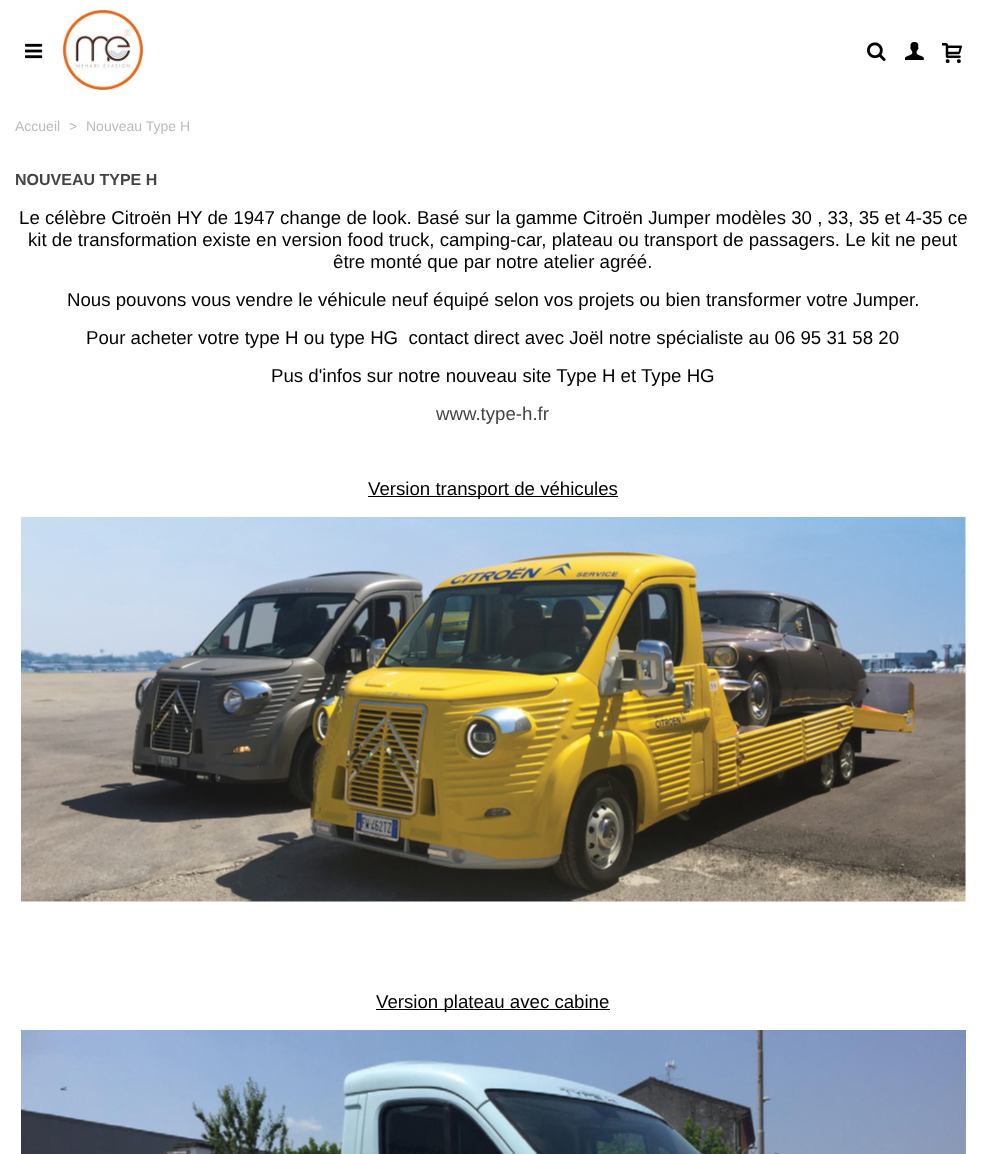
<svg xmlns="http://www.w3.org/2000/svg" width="986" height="1154">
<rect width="100%" height="100%" fill="#fff"/>
<image x="25" y="43" width="18" height="16" href="media/1.png"/>
<image x="63" y="10" width="80" height="80" href="media/2.png"/>
<image x="867" y="42" width="19" height="19" href="media/3.png"/>
<image x="905" y="42" width="19" height="18" href="media/4.png"/>
<image x="942" y="43" width="20" height="20" href="media/5.png"/>
<text x="15" y="131" style="font-family:Liberation Sans;font-size:14px;fill:#bbb">Accueil</text>
<text x="69" y="131" style="font-family:Liberation Sans;font-size:14px;fill:#bbb">&gt;</text>
<text x="86" y="131" style="font-family:Liberation Sans;font-size:14px;fill:#bbb">Nouveau Type H</text>
<text x="15" y="185" style="font-family:Liberation Sans;font-size:16px;font-weight:bold;fill:#444">NOUVEAU TYPE H</text>
<text x="19" y="224" style="font-family:Liberation Sans;font-size:18.67px;fill:#000">Le célèbre Citroën HY de 1947 change de look. Basé sur la gamme Citroën Jumper modèles 30 , 33, 35 et 4-35 ce</text>
<text x="28" y="246" style="font-family:Liberation Sans;font-size:18.67px;fill:#000">kit de transformation existe en version food truck, camping-car, plateau ou transport de passagers. Le kit ne peut</text>
<text x="333" y="268" style="font-family:Liberation Sans;font-size:18.67px;fill:#000">être monté que par notre atelier agréé.</text>
<text x="67" y="306" style="font-family:Liberation Sans;font-size:18.67px;fill:#000">Nous pouvons vous vendre le véhicule neuf équipé selon vos projets ou bien transformer votre Jumper.</text>
<text x="86" y="344" style="font-family:Liberation Sans;font-size:18.67px;fill:#000" xml:space="preserve">Pour acheter votre type H ou type HG  contact direct avec Joël notre spécialiste au 06 95 31 58 20</text>
<text x="271" y="382" style="font-family:Liberation Sans;font-size:18.67px;fill:#000">Pus d'infos sur notre nouveau site Type H et Type HG</text>
<text x="436" y="420" style="font-family:Liberation Sans;font-size:18.67px;fill:#444">www.type-h.fr</text>
<rect x="368" y="496" width="250" height="1" fill="#000"/>
<text x="368" y="495" style="font-family:Liberation Sans;font-size:18.67px;fill:#000">Version transport de véhicules</text>
<image x="21" y="517" width="945" height="385" href="media/6.png"/>
<rect x="376" y="1009" width="234" height="1" fill="#000"/>
<text x="376" y="1008" style="font-family:Liberation Sans;font-size:18.67px;fill:#000">Version plateau avec cabine</text>
<image x="21" y="1030" width="945" height="124" href="media/7.png"/>
</svg>
